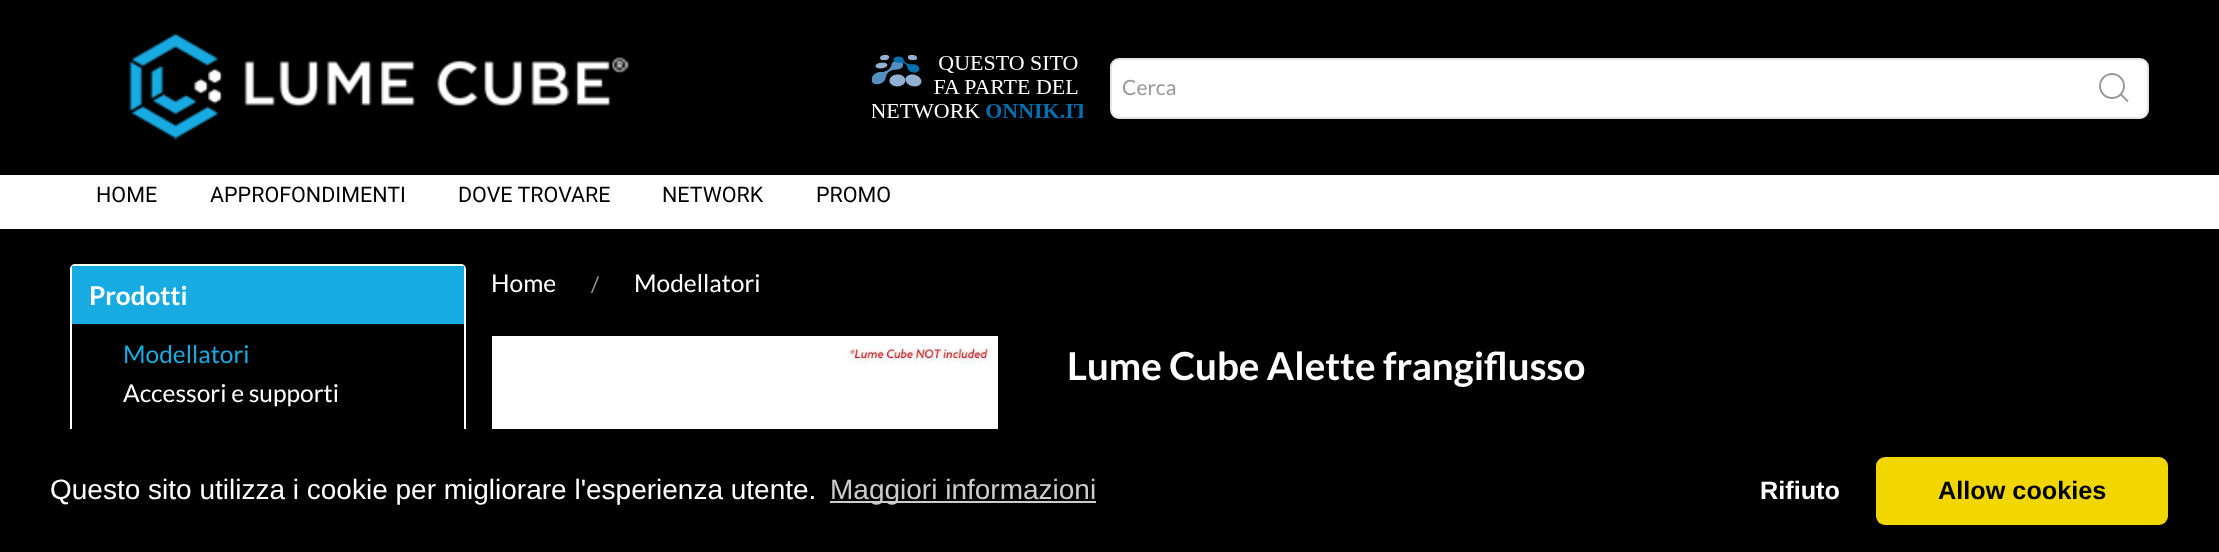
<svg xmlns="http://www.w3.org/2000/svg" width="2219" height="552">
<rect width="100%" height="100%" fill="#000"/>
<image x="129" y="33" width="500" height="108" href="media/1.png"/>
<image x="872" y="54" width="211" height="64" href="media/2.png"/>
<rect x="1111" y="59" width="1037" height="59" rx="8" fill="#fff" stroke="#e5e5e5" stroke-width="2"/>
<text x="1122" y="95" style="font-family:Lato;font-size:21px;fill:#999">Cerca</text>
<circle cx="2112" cy="86" r="12" fill="none" stroke="#999" stroke-width="1.9"/>
<path d="M2121 94.5l7 7z" fill="none" stroke="#999" stroke-width="1.9"/>
<rect y="175" width="2219" height="54" fill="#fff"/>
<text x="96" y="202" style="font-family:Roboto;font-size:21.5px;fill:#000">HOME</text>
<text x="210" y="202" style="font-family:Roboto;font-size:21.5px;fill:#000">APPROFONDIMENTI</text>
<text x="458" y="202" style="font-family:Roboto;font-size:21.5px;fill:#000">DOVE TROVARE</text>
<text x="662" y="202" style="font-family:Roboto;font-size:21.5px;fill:#000">NETWORK</text>
<text x="816" y="202" style="font-family:Roboto;font-size:21.5px;fill:#000">PROMO</text>
<rect x="71" y="265" width="394" height="212" rx="4" fill="none" stroke="#fff" stroke-width="2"/>
<rect x="72" y="266" width="392" height="58" fill="#18abe2"/>
<text x="89" y="305" style="font-family:Lato;font-size:26px;font-weight:bold;fill:#fff">Prodotti</text>
<text x="123" y="363" style="font-family:Lato;font-size:24.5px;fill:#18abe2">Modellatori</text>
<text x="123" y="402" style="font-family:Lato;font-size:24.5px;fill:#fff">Accessori e supporti</text>
<text x="491" y="292" style="font-family:Lato;font-size:24.5px;fill:#fff">Home</text>
<text x="591" y="292" style="font-family:Lato;font-size:21.5px;fill:#999">/</text>
<text x="634" y="292" style="font-family:Lato;font-size:24.5px;fill:#fff">Modellatori</text>
<rect x="492" y="336" width="506" height="93" fill="#fff"/>
<image x="601" y="344" width="390" height="85" href="media/3.png"/>
<text x="1067" y="380" style="font-family:Lato;font-size:38.5px;font-weight:bold;fill:#fff">Lume Cube Alette frangiflusso</text>
<rect x="70" y="429" width="396" height="49" fill="#000"/>
<text x="50" y="499" style="font-family:Liberation Sans;font-size:28px;fill:#fff">Questo sito utilizza i cookie per migliorare l'esperienza utente.</text>
<rect x="830" y="501" width="266" height="2" fill="#ccc"/>
<text x="830" y="499" style="font-family:Liberation Sans;font-size:28px;fill:#ccc">Maggiori informazioni</text>
<text x="1760" y="499" style="font-family:Liberation Sans;font-size:25.25px;font-weight:bold;fill:#fff">Rifiuto</text>
<rect x="1876" y="457" width="292" height="68" rx="9" fill="#f1d600"/>
<text x="1938" y="499" style="font-family:Liberation Sans;font-size:25.25px;font-weight:bold;fill:#000">Allow cookies</text>
</svg>
